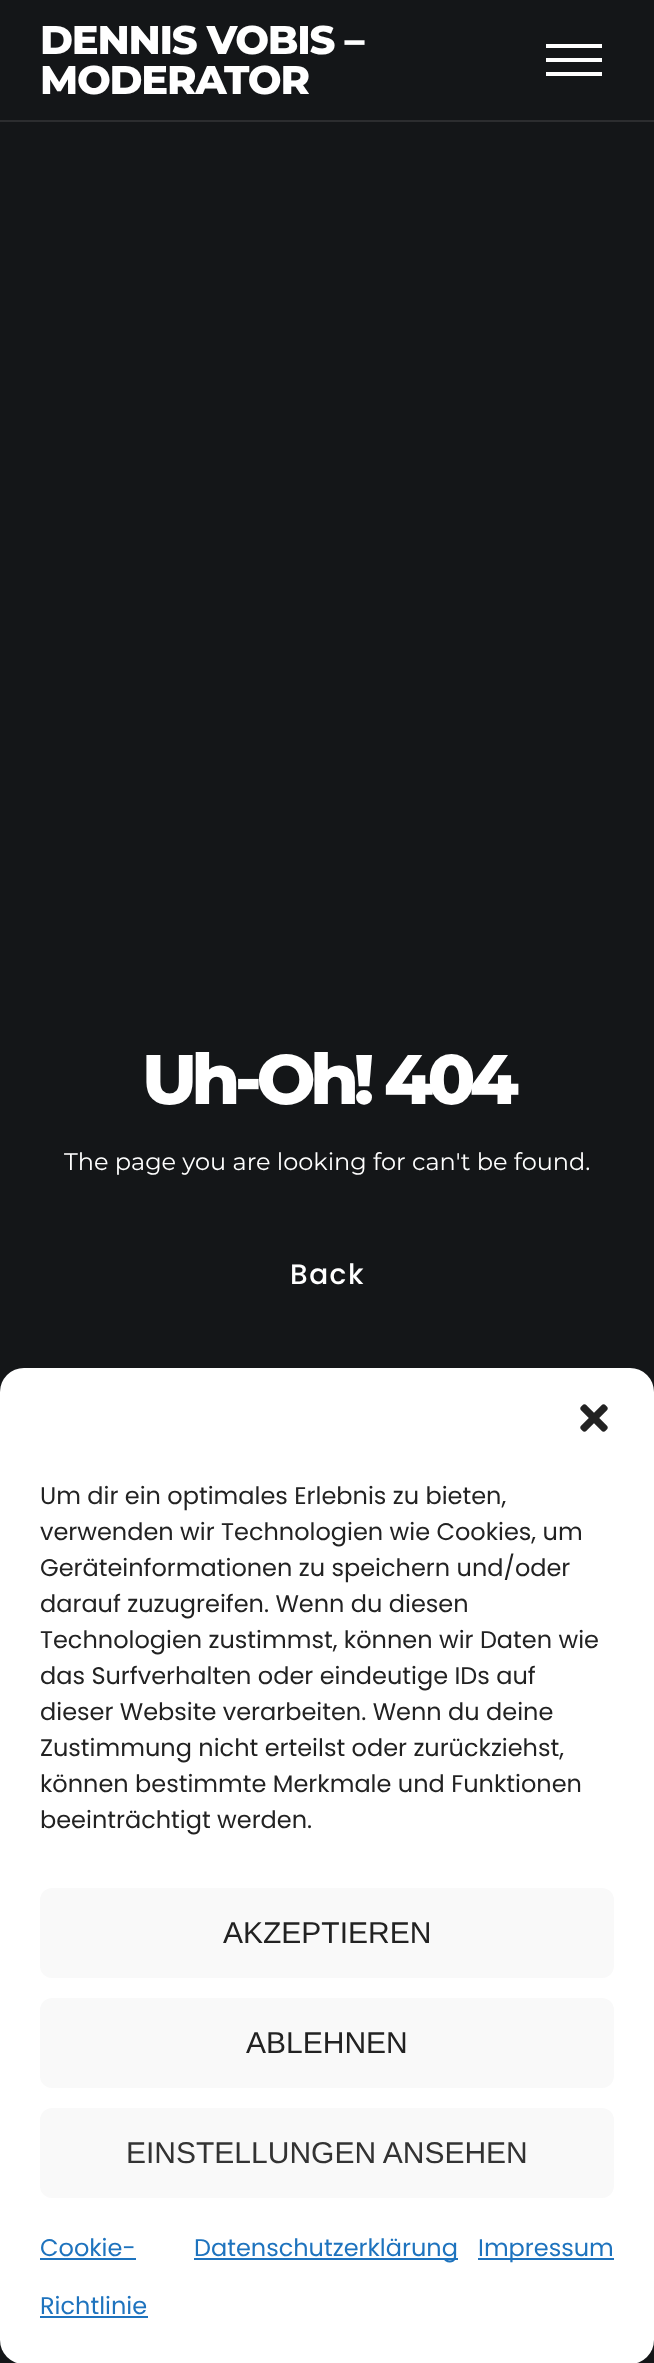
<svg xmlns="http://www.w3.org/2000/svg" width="654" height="2363">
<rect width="100%" height="100%" fill="#141618"/>
<rect y="120" width="654" height="2" fill="#2c2d2f"/>
<text x="40" y="54" style="font-family:Montserrat;font-size:40px;font-weight:800;letter-spacing:-1.25px;fill:#fff">DENNIS VOBIS –</text>
<text x="40" y="94" style="font-family:Montserrat;font-size:40px;font-weight:800;letter-spacing:-1.25px;fill:#fff">MODERATOR</text>
<rect x="546" y="58" width="56" height="4" fill="#fff"/>
<rect x="546" y="44" width="56" height="4" fill="#fff"/>
<rect x="546" y="72" width="56" height="4" fill="#fff"/>
<text x="142" y="1104" style="font-family:Montserrat;font-size:70px;font-weight:800;letter-spacing:-5.5px;fill:#fff">Uh-Oh! 404</text>
<text x="64" y="1170" style="font-family:Montserrat;font-size:24px;fill:#fff">The page you are looking for can't be found.</text>
<text x="290" y="1284" style="font-family:Poppins;font-size:28px;font-weight:500;letter-spacing:1.5px;fill:#fff">Back</text>
<rect y="1368" width="654" height="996" rx="24" fill="#fff"/>
<image x="580" y="1404" width="28" height="28" href="media/1.png"/>
<text x="40" y="1504" style="font-family:Poppins;font-size:24px;fill:#222">Um dir ein optimales Erlebnis zu bieten,</text>
<text x="40" y="1540" style="font-family:Poppins;font-size:24px;fill:#222">verwenden wir Technologien wie Cookies, um</text>
<text x="40" y="1576" style="font-family:Poppins;font-size:24px;fill:#222">Geräteinformationen zu speichern und/oder</text>
<text x="40" y="1612" style="font-family:Poppins;font-size:24px;fill:#222">darauf zuzugreifen. Wenn du diesen</text>
<text x="40" y="1648" style="font-family:Poppins;font-size:24px;fill:#222">Technologien zustimmst, können wir Daten wie</text>
<text x="40" y="1684" style="font-family:Poppins;font-size:24px;fill:#222">das Surfverhalten oder eindeutige IDs auf</text>
<text x="40" y="1720" style="font-family:Poppins;font-size:24px;fill:#222">dieser Website verarbeiten. Wenn du deine</text>
<text x="40" y="1756" style="font-family:Poppins;font-size:24px;fill:#222">Zustimmung nicht erteilst oder zurückziehst,</text>
<text x="40" y="1792" style="font-family:Poppins;font-size:24px;fill:#222">können bestimmte Merkmale und Funktionen</text>
<text x="40" y="1828" style="font-family:Poppins;font-size:24px;fill:#222">beeinträchtigt werden.</text>
<rect x="40" y="1888" width="574" height="90" rx="12" fill="#f9f9f9"/>
<text x="223" y="1943" style="font-family:Liberation Sans;font-size:30px;fill:#222">AKZEPTIEREN</text>
<rect x="40" y="1998" width="574" height="90" rx="12" fill="#f9f9f9"/>
<text x="246" y="2053" style="font-family:Liberation Sans;font-size:30px;fill:#222">ABLEHNEN</text>
<rect x="40" y="2108" width="574" height="90" rx="12" fill="#f9f9f9"/>
<text x="126" y="2163" style="font-family:Liberation Sans;font-size:30px;fill:#333">EINSTELLUNGEN ANSEHEN</text>
<text x="40" y="2256" style="font-family:Poppins;font-size:24px;fill:#1e73be">Cookie-</text>
<rect x="40" y="2258" width="96" height="2" fill="#1e73be"/>
<text x="40" y="2314" style="font-family:Poppins;font-size:24px;fill:#1e73be">Richtlinie</text>
<rect x="40" y="2316" width="108" height="2" fill="#1e73be"/>
<rect x="194" y="2258" width="264" height="2" fill="#1e73be"/>
<text x="194" y="2256" style="font-family:Poppins;font-size:24px;fill:#1e73be">Datenschutzerklärung</text>
<rect x="478" y="2258" width="136" height="2" fill="#1e73be"/>
<text x="478" y="2256" style="font-family:Poppins;font-size:24px;fill:#1e73be">Impressum</text>
</svg>
